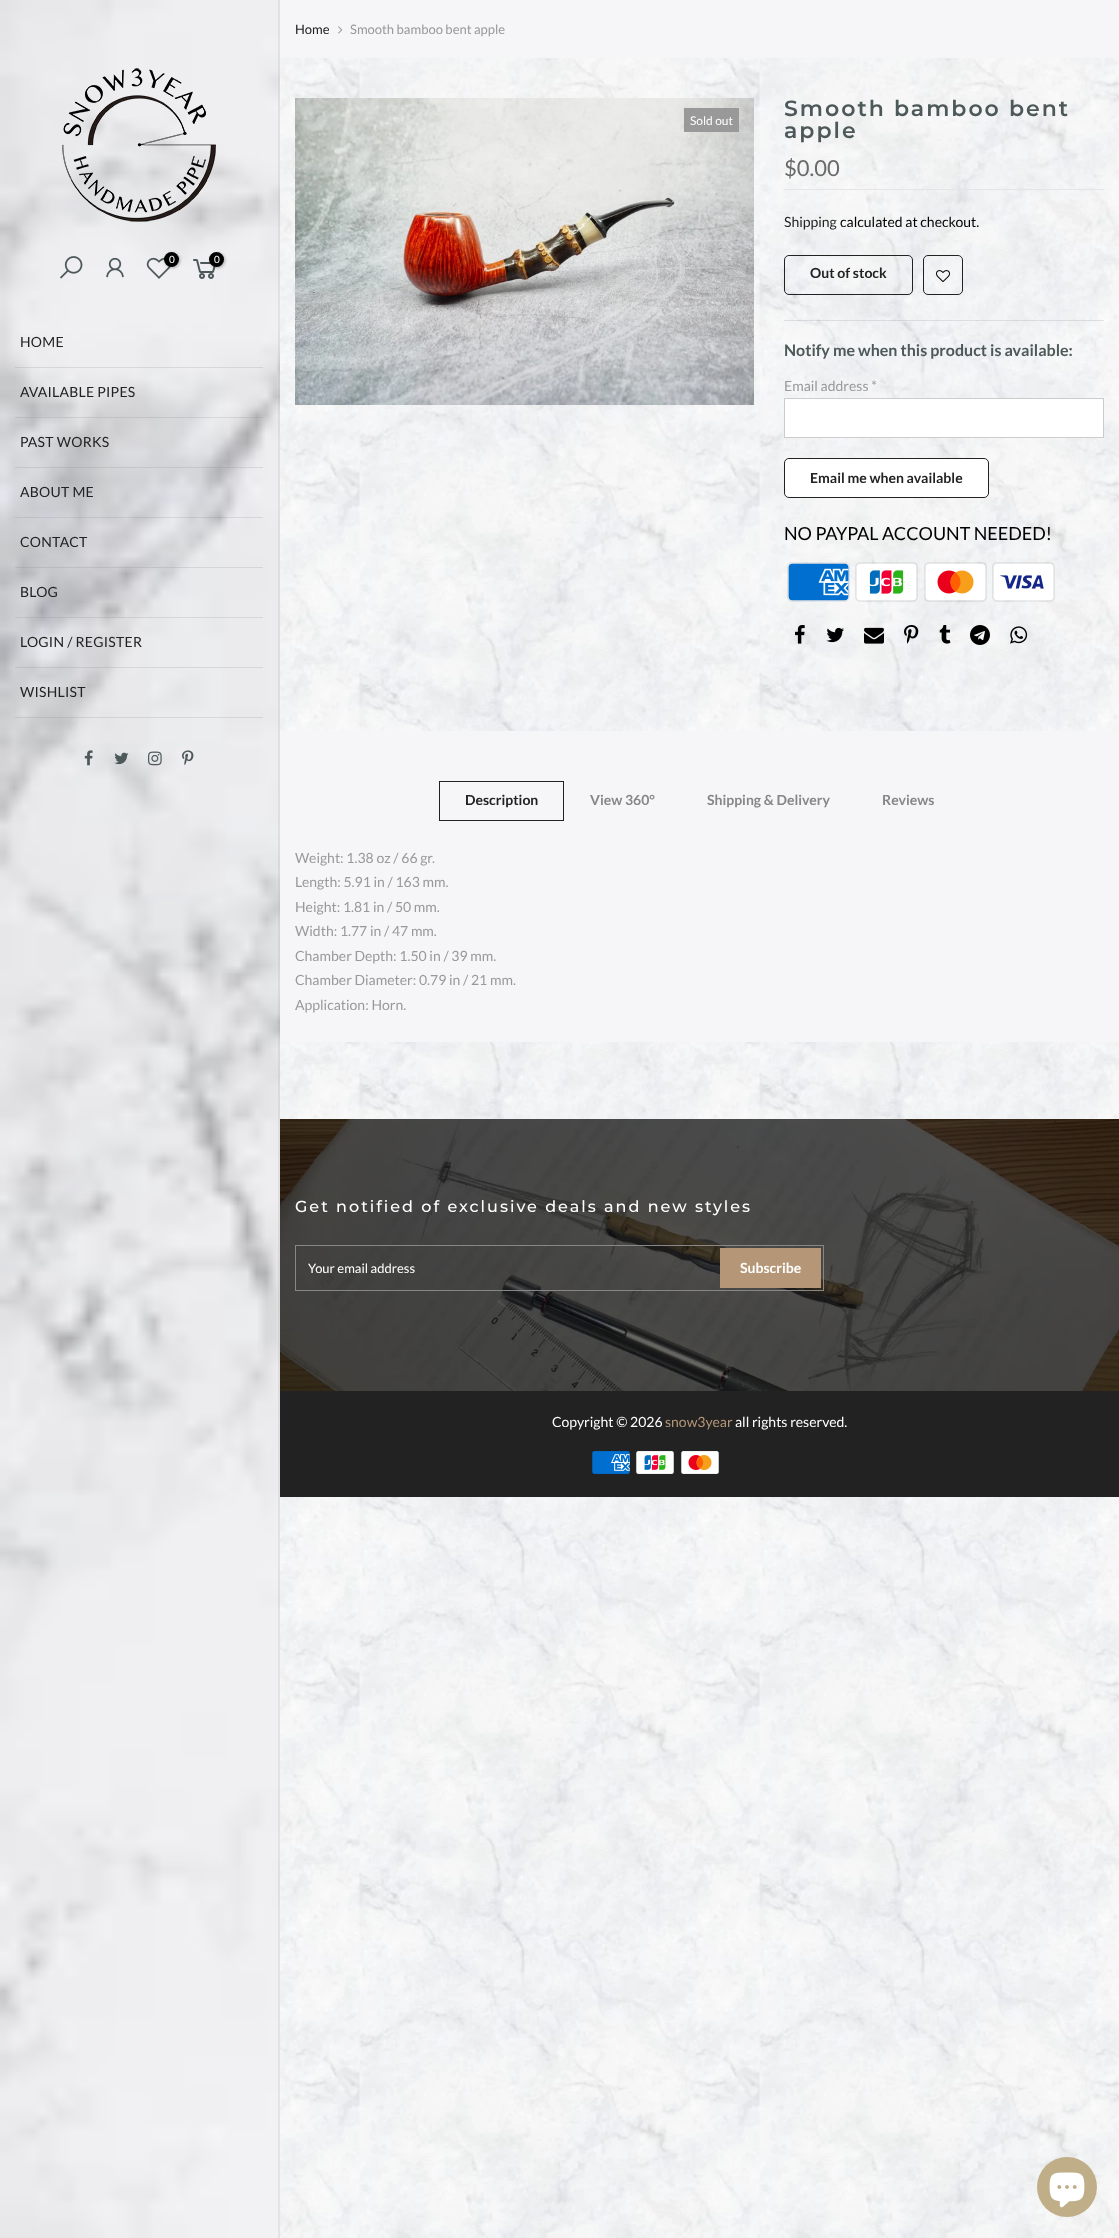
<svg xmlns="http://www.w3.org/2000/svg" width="1119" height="2238">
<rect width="100%" height="100%" fill="#fff"/>
<image x="280" y="58" width="839" height="2180" href="media/1.png"/>
<image x="0" y="0" width="280" height="2238" href="media/2.png"/>
<rect x="278" width="2" height="2238" fill="#96969626"/>
<image x="62" y="68" width="154" height="154" href="media/3.png"/>
<image x="60" y="256" width="23" height="23" href="media/4.png"/>
<image x="106" y="257" width="18" height="21" href="media/5.png"/>
<image x="146" y="257" width="25" height="22" href="media/6.png"/>
<rect x="165" y="253" width="15" height="15" rx="7.5" fill="#0000004d" filter="blur(1.5px)"/>
<circle cx="171.5" cy="259.5" r="7.5" fill="#000"/>
<text x="169" y="263" style="font-family:Lato;font-size:10px;fill:#fff">0</text>
<image x="193" y="259" width="23" height="20" href="media/7.png"/>
<rect x="210" y="253" width="15" height="15" rx="7.5" fill="#0000004d" filter="blur(1.5px)"/>
<circle cx="216.5" cy="259.5" r="7.5" fill="#000"/>
<text x="214" y="263" style="font-family:Lato;font-size:10px;fill:#fff">0</text>
<rect x="15" y="367" width="248" height="1" fill="#81818133"/>
<text x="20" y="347" style="font-family:Lato;font-size:14px;letter-spacing:0.25px;fill:#222">HOME</text>
<rect x="15" y="417" width="248" height="1" fill="#81818133"/>
<text x="20" y="397" style="font-family:Lato;font-size:14px;letter-spacing:0.25px;fill:#222">AVAILABLE PIPES</text>
<rect x="15" y="467" width="248" height="1" fill="#81818133"/>
<text x="20" y="447" style="font-family:Lato;font-size:14px;letter-spacing:0.25px;fill:#222">PAST WORKS</text>
<rect x="15" y="517" width="248" height="1" fill="#81818133"/>
<text x="20" y="497" style="font-family:Lato;font-size:14px;letter-spacing:0.25px;fill:#222">ABOUT ME</text>
<rect x="15" y="567" width="248" height="1" fill="#81818133"/>
<text x="20" y="547" style="font-family:Lato;font-size:14px;letter-spacing:0.25px;fill:#222">CONTACT</text>
<rect x="15" y="617" width="248" height="1" fill="#81818133"/>
<text x="20" y="597" style="font-family:Lato;font-size:14px;letter-spacing:0.25px;fill:#222">BLOG</text>
<rect x="15" y="667" width="248" height="1" fill="#81818133"/>
<text x="20" y="647" style="font-family:Lato;font-size:14px;letter-spacing:0.25px;fill:#222">LOGIN / REGISTER</text>
<rect x="15" y="717" width="248" height="1" fill="#81818133"/>
<text x="20" y="697" style="font-family:Lato;font-size:14px;letter-spacing:0.25px;fill:#222">WISHLIST</text>
<image x="84" y="750" width="9" height="16" href="media/8.png"/>
<image x="114" y="752" width="15" height="13" href="media/9.png"/>
<image x="148" y="751" width="14" height="15" href="media/10.png"/>
<image x="182" y="750" width="12" height="16" href="media/11.png"/>
<rect x="280" width="839" height="58" fill="#f6f6f8"/>
<text x="295" y="34" style="font-family:Lato;font-size:13px;fill:#222">Home</text>
<image x="338" y="26" width="5" height="8" href="media/12.png"/>
<text x="350" y="34" style="font-family:Lato;font-size:13px;fill:#999">Smooth bamboo bent apple</text>
<image x="295" y="98" width="459" height="307" href="media/13.png"/>
<rect x="684" y="108" width="55" height="24" fill="#999"/>
<text x="690" y="125" style="font-family:Lato;font-size:12px;fill:#fff">Sold out</text>
<text x="784" y="116" style="font-family:Montserrat;font-size:22px;font-weight:600;letter-spacing:2px;fill:#4d5959">Smooth bamboo bent</text>
<text x="784" y="138" style="font-family:Montserrat;font-size:22px;font-weight:600;letter-spacing:2px;fill:#4d5959">apple</text>
<rect x="784" y="189" width="320" height="1" fill="#e5e5e5"/>
<text x="784" y="176" style="font-family:Lato;font-size:22px;fill:#696969">$0.00</text>
<text x="784" y="227" style="font-family:Lato;font-size:14px;fill:#222">Shipping</text>
<text x="840" y="227" style="font-family:Lato;font-size:14px;fill:#000">calculated at checkout.</text>
<rect x="784.5" y="255.5" width="128" height="39" rx="4.5" fill="none" stroke="#222"/>
<text x="810" y="278" style="font-family:Lato;font-size:14px;font-weight:bold;fill:#222">Out of stock</text>
<rect x="923.5" y="255.5" width="39" height="39" rx="4.5" fill="none" stroke="#222"/>
<image x="936" y="270" width="14" height="12" href="media/14.png"/>
<rect x="784" y="320" width="320" height="1" fill="#81818133"/>
<text x="784" y="356" style="font-family:Lato;font-size:16px;font-weight:bold;fill:#4d5959">Notify me when this product is available:</text>
<text x="784" y="391" style="font-family:Lato;font-size:14px;fill:#999">Email address *</text>
<rect x="784.5" y="398.5" width="319" height="39" fill="#fff" stroke="#ccc"/>
<rect x="784.5" y="458.5" width="204" height="39" rx="4.5" fill="#fff" stroke="#222"/>
<text x="810" y="483" style="font-family:Lato;font-size:14px;font-weight:bold;fill:#222">Email me when available</text>
<text x="784" y="540" style="font-family:Lato;font-size:18px;fill:#000">NO PAYPAL ACCOUNT NEEDED!</text>
<image x="787" y="562" width="63" height="40" href="media/15.png"/>
<image x="855" y="562" width="63" height="40" href="media/16.png"/>
<image x="924" y="562" width="63" height="40" href="media/17.png"/>
<image x="992" y="562" width="63" height="40" href="media/18.png"/>
<image x="795" y="625" width="10" height="19" href="media/19.png"/>
<image x="826" y="627" width="18" height="16" href="media/20.png"/>
<image x="864" y="627" width="20" height="17" href="media/21.png"/>
<image x="904" y="625" width="15" height="19" href="media/22.png"/>
<image x="939" y="625" width="12" height="19" href="media/23.png"/>
<image x="970" y="625" width="20" height="20" href="media/24.png"/>
<image x="1010" y="626" width="18" height="18" href="media/25.png"/>
<rect x="280" y="731" width="839" height="311" fill="#f6f6f8"/>
<rect x="439.5" y="781.5" width="124" height="39" fill="none" stroke="#222"/>
<text x="465" y="805" style="font-family:Lato;font-size:14px;font-weight:bold;fill:#222">Description</text>
<text x="590" y="805" style="font-family:Lato;font-size:14px;font-weight:bold;fill:#878787">View 360°</text>
<text x="707" y="805" style="font-family:Lato;font-size:14px;font-weight:bold;fill:#878787">Shipping &amp; Delivery</text>
<text x="882" y="805" style="font-family:Lato;font-size:14px;font-weight:bold;fill:#878787">Reviews</text>
<text x="295" y="863" style="font-family:Lato;font-size:14px;fill:#999">Weight: 1.38 oz / 66 gr.</text>
<text x="295" y="887" style="font-family:Lato;font-size:14px;fill:#999">Length: 5.91 in / 163 mm.</text>
<text x="295" y="912" style="font-family:Lato;font-size:14px;fill:#999">Height: 1.81 in / 50 mm.</text>
<text x="295" y="936" style="font-family:Lato;font-size:14px;fill:#999">Width: 1.77 in / 47 mm.</text>
<text x="295" y="961" style="font-family:Lato;font-size:14px;fill:#999">Chamber Depth: 1.50 in / 39 mm.</text>
<text x="295" y="985" style="font-family:Lato;font-size:14px;fill:#999">Chamber Diameter: 0.79 in / 21 mm.</text>
<text x="295" y="1010" style="font-family:Lato;font-size:14px;fill:#999">Application: Horn.</text>
<image x="280" y="1119" width="839" height="272" href="media/26.png"/>
<text x="295" y="1212" style="font-family:Montserrat;font-size:16px;font-weight:500;letter-spacing:2px;fill:#fff">Get notified of exclusive deals and new styles</text>
<rect x="295.5" y="1245.5" width="528" height="45" fill="none" stroke="#878787"/>
<text x="308" y="1273" style="font-family:Lato;font-size:13px;fill:#fff">Your email address</text>
<rect x="720" y="1248" width="101" height="40" fill="#b59677"/>
<text x="740" y="1273" style="font-family:Lato;font-size:14px;font-weight:bold;fill:#fff">Subscribe</text>
<rect x="280" y="1391" width="839" height="106" fill="#222"/>
<text x="552" y="1427" style="font-family:Lato;font-size:14px;fill:#fff">Copyright © 2026</text>
<text x="665" y="1427" style="font-family:Lato;font-size:14px;fill:#b59677">snow3year</text>
<text x="735" y="1427" style="font-family:Lato;font-size:14px;fill:#fff">all rights reserved.</text>
<image x="592" y="1451" width="38" height="23" href="media/27.png"/>
<image x="636" y="1451" width="38" height="23" href="media/28.png"/>
<image x="681" y="1451" width="38" height="23" href="media/29.png"/>
<circle cx="1067" cy="2187" r="30" fill="#bfae88"/>
<image x="1049" y="2172" width="36" height="36" href="media/30.png"/>
</svg>
